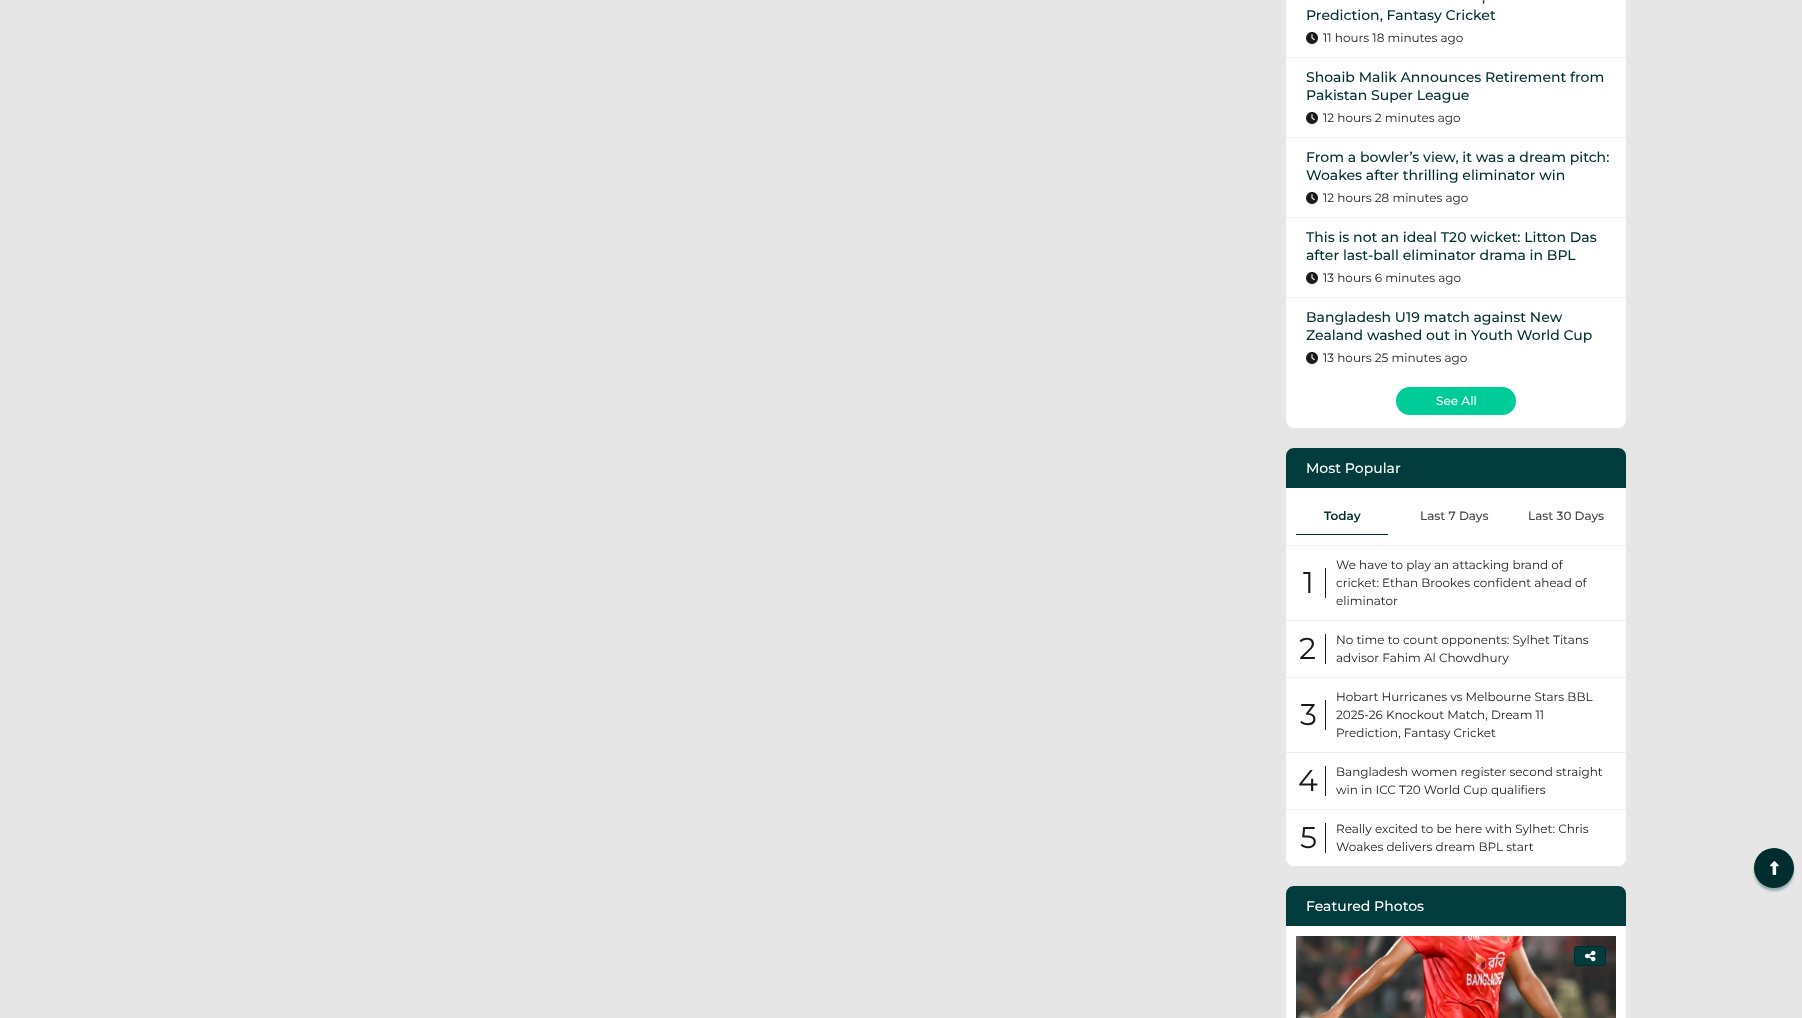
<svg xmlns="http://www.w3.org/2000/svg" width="1802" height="1018">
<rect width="100%" height="100%" fill="#e6e6e6"/>
<rect x="1286" y="-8" width="340" height="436" rx="8" fill="#fff"/>
<rect x="1286" y="57" width="340" height="1" fill="#edeef0"/>
<text x="1482" y="2" style="font-family:Montserrat;font-size:14px;font-weight:500;fill:#002d2e">,</text>
<text x="1306" y="20" style="font-family:Montserrat;font-size:14px;font-weight:500;fill:#002d2e">Prediction, Fantasy Cricket</text>
<image x="1306" y="32" width="12" height="12" href="media/1.png"/>
<text x="1323" y="42" style="font-family:Montserrat;font-size:12px;fill:#1a1a1a">11 hours 18 minutes ago</text>
<rect x="1286" y="137" width="340" height="1" fill="#edeef0"/>
<text x="1306" y="82" style="font-family:Montserrat;font-size:14px;font-weight:500;fill:#002d2e">Shoaib Malik Announces Retirement from</text>
<text x="1306" y="100" style="font-family:Montserrat;font-size:14px;font-weight:500;fill:#002d2e">Pakistan Super League</text>
<image x="1306" y="112" width="12" height="12" href="media/1.png"/>
<text x="1323" y="122" style="font-family:Montserrat;font-size:12px;fill:#1a1a1a">12 hours 2 minutes ago</text>
<rect x="1286" y="217" width="340" height="1" fill="#edeef0"/>
<text x="1306" y="162" style="font-family:Montserrat;font-size:14px;font-weight:500;fill:#002d2e">From a bowler’s view, it was a dream pitch:</text>
<text x="1306" y="180" style="font-family:Montserrat;font-size:14px;font-weight:500;fill:#002d2e">Woakes after thrilling eliminator win</text>
<image x="1306" y="192" width="12" height="12" href="media/1.png"/>
<text x="1323" y="202" style="font-family:Montserrat;font-size:12px;fill:#1a1a1a">12 hours 28 minutes ago</text>
<rect x="1286" y="297" width="340" height="1" fill="#edeef0"/>
<text x="1306" y="242" style="font-family:Montserrat;font-size:14px;font-weight:500;fill:#002d2e">This is not an ideal T20 wicket: Litton Das</text>
<text x="1306" y="260" style="font-family:Montserrat;font-size:14px;font-weight:500;fill:#002d2e">after last-ball eliminator drama in BPL</text>
<image x="1306" y="272" width="12" height="12" href="media/1.png"/>
<text x="1323" y="282" style="font-family:Montserrat;font-size:12px;fill:#1a1a1a">13 hours 6 minutes ago</text>
<text x="1306" y="322" style="font-family:Montserrat;font-size:14px;font-weight:500;fill:#002d2e">Bangladesh U19 match against New</text>
<text x="1306" y="340" style="font-family:Montserrat;font-size:14px;font-weight:500;fill:#002d2e">Zealand washed out in Youth World Cup</text>
<image x="1306" y="352" width="12" height="12" href="media/1.png"/>
<text x="1323" y="362" style="font-family:Montserrat;font-size:12px;fill:#1a1a1a">13 hours 25 minutes ago</text>
<rect x="1396" y="387" width="120" height="28" rx="14" fill="#0c9"/>
<text x="1436" y="405" style="font-family:Montserrat;font-size:12px;font-weight:500;fill:#fff">See All</text>
<rect x="1286" y="448" width="340" height="418" rx="8" fill="#fff"/>
<path d="M1294 448h324c4.5 0 8 3.5 8 8v32h-340v-32c0-4.5 3.5-8 8-8z" fill="#033c3d"/>
<text x="1306" y="473" style="font-family:Montserrat;font-size:14px;font-weight:500;fill:#fff">Most Popular</text>
<rect x="1286" y="545" width="340" height="1" fill="#edeef0"/>
<rect x="1296" y="534" width="92" height="1" fill="#002d2e"/>
<text x="1324" y="520" style="font-family:Montserrat;font-size:12px;font-weight:600;fill:#002d2e">Today</text>
<text x="1420" y="520" style="font-family:Montserrat;font-size:12px;font-weight:500;fill:#444">Last 7 Days</text>
<text x="1528" y="520" style="font-family:Montserrat;font-size:12px;font-weight:500;fill:#444">Last 30 Days</text>
<rect x="1286" y="620" width="340" height="1" fill="#edeef0"/>
<rect x="1325" y="568" width="1" height="30" fill="#1a1a1a"/>
<text x="1303" y="593" style="font-family:Montserrat;font-size:30px;fill:#1a1a1a">1</text>
<text x="1336" y="569" style="font-family:Montserrat;font-size:12px;fill:#1a1a1a">We have to play an attacking brand of</text>
<text x="1336" y="587" style="font-family:Montserrat;font-size:12px;fill:#1a1a1a">cricket: Ethan Brookes confident ahead of</text>
<text x="1336" y="605" style="font-family:Montserrat;font-size:12px;fill:#1a1a1a">eliminator</text>
<rect x="1286" y="677" width="340" height="1" fill="#edeef0"/>
<rect x="1325" y="634" width="1" height="30" fill="#1a1a1a"/>
<text x="1299" y="659" style="font-family:Montserrat;font-size:30px;fill:#1a1a1a">2</text>
<text x="1336" y="644" style="font-family:Montserrat;font-size:12px;fill:#1a1a1a">No time to count opponents: Sylhet Titans</text>
<text x="1336" y="662" style="font-family:Montserrat;font-size:12px;fill:#1a1a1a">advisor Fahim Al Chowdhury</text>
<rect x="1286" y="752" width="340" height="1" fill="#edeef0"/>
<rect x="1325" y="700" width="1" height="30" fill="#1a1a1a"/>
<text x="1300" y="725" style="font-family:Montserrat;font-size:30px;fill:#1a1a1a">3</text>
<text x="1336" y="701" style="font-family:Montserrat;font-size:12px;fill:#1a1a1a">Hobart Hurricanes vs Melbourne Stars BBL</text>
<text x="1336" y="719" style="font-family:Montserrat;font-size:12px;fill:#1a1a1a">2025-26 Knockout Match, Dream 11</text>
<text x="1336" y="737" style="font-family:Montserrat;font-size:12px;fill:#1a1a1a">Prediction, Fantasy Cricket</text>
<rect x="1286" y="809" width="340" height="1" fill="#edeef0"/>
<rect x="1325" y="766" width="1" height="30" fill="#1a1a1a"/>
<text x="1298" y="791" style="font-family:Montserrat;font-size:30px;fill:#1a1a1a">4</text>
<text x="1336" y="776" style="font-family:Montserrat;font-size:12px;fill:#1a1a1a">Bangladesh women register second straight</text>
<text x="1336" y="794" style="font-family:Montserrat;font-size:12px;fill:#1a1a1a">win in ICC T20 World Cup qualifiers</text>
<rect x="1325" y="823" width="1" height="30" fill="#1a1a1a"/>
<text x="1300" y="848" style="font-family:Montserrat;font-size:30px;fill:#1a1a1a">5</text>
<text x="1336" y="833" style="font-family:Montserrat;font-size:12px;fill:#1a1a1a">Really excited to be here with Sylhet: Chris</text>
<text x="1336" y="851" style="font-family:Montserrat;font-size:12px;fill:#1a1a1a">Woakes delivers dream BPL start</text>
<rect x="1286" y="886" width="340" height="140" rx="8" fill="#fff"/>
<path d="M1294 886h324c4.5 0 8 3.5 8 8v32h-340v-32c0-4.5 3.5-8 8-8z" fill="#033c3d"/>
<text x="1306" y="911" style="font-family:Montserrat;font-size:14px;font-weight:500;fill:#fff">Featured Photos</text>
<image x="1296" y="936" width="320" height="82" href="media/2.png"/>
<rect x="1574.5" y="946.5" width="31" height="19" rx="2.5" fill="#033c3d" stroke="#002d2e"/>
<image x="1585" y="950" width="11" height="12" href="media/3.png"/>
<rect x="1754" y="851" width="40" height="40" rx="20" fill="#033c3d57" filter="blur(1px)"/>
<circle cx="1774" cy="868" r="20" fill="#002d2e"/>
<image x="1770" y="861" width="9" height="14" href="media/4.png"/>
</svg>
